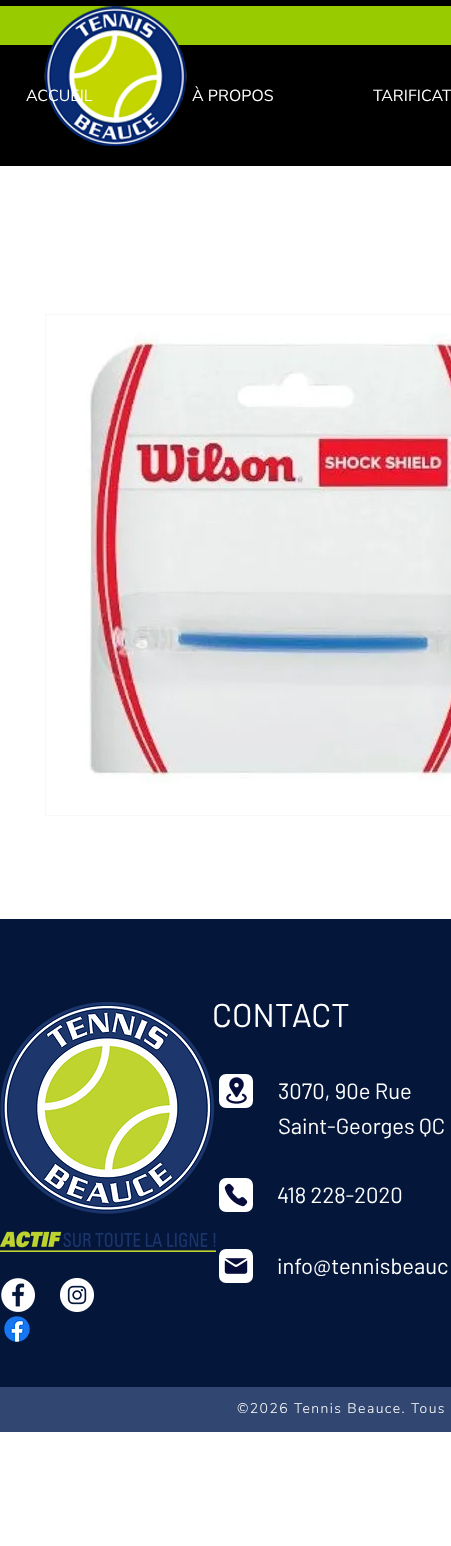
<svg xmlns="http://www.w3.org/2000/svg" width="451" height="1546">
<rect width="100%" height="100%" fill="#fff"/>
<rect width="451" height="166" fill="#000"/>
<rect y="6" width="451" height="39" fill="#9c0"/>
<image x="44" y="6" width="143" height="140" href="media/1.png"/>
<text x="26" y="101" style="font-family:Nunito Sans;font-size:16px;fill:#fff">ACCUEIL</text>
<text x="192" y="101" style="font-family:Nunito Sans;font-size:16px;fill:#fff">À PROPOS</text>
<text x="373" y="101" style="font-family:Nunito Sans;font-size:16px;fill:#fff">TARIFICAT</text>
<rect x="45.5" y="314.5" width="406" height="501" fill="none" stroke="#f9f7fa"/>
<image x="86" y="332" width="365" height="451" href="media/2.png"/>
<rect y="919" width="451" height="468" fill="#04163a"/>
<image x="0" y="1002" width="216" height="250" href="media/3.png"/>
<image x="1" y="1278" width="34" height="34" href="media/4.png"/>
<image x="60" y="1278" width="34" height="34" href="media/5.png"/>
<image x="4" y="1316" width="26" height="26" href="media/6.png"/>
<text x="212" y="1027" style="font-family:Barlow;font-size:33px;fill:#fff">CONTACT</text>
<rect x="219" y="1074" width="34" height="34" rx="7" fill="#fff"/>
<image x="226" y="1077" width="21" height="27" href="media/7.png"/>
<text x="278" y="1099" style="font-family:Barlow;font-size:22px;fill:#fff">3070, 90e Rue</text>
<text x="278" y="1134" style="font-family:Barlow;font-size:22px;fill:#fff">Saint-Georges QC</text>
<rect x="219" y="1178" width="34" height="34" rx="7" fill="#fff"/>
<image x="224" y="1183" width="24" height="24" href="media/8.png"/>
<text x="277" y="1203" style="font-family:Barlow;font-size:22px;fill:#fff">418 228-2020</text>
<rect x="219" y="1249" width="34" height="34" rx="7" fill="#fff"/>
<image x="224" y="1258" width="24" height="16" href="media/9.png"/>
<text x="277" y="1274" style="font-family:Barlow;font-size:22px;fill:#fff">info@tennisbeauc</text>
<rect y="1387" width="451" height="45" fill="#314670"/>
<text x="237" y="1413" style="font-family:Nunito Sans;font-size:14px;font-weight:300;letter-spacing:1.4px;fill:#fff">©2026 Tennis Beauce. Tous</text>
</svg>
